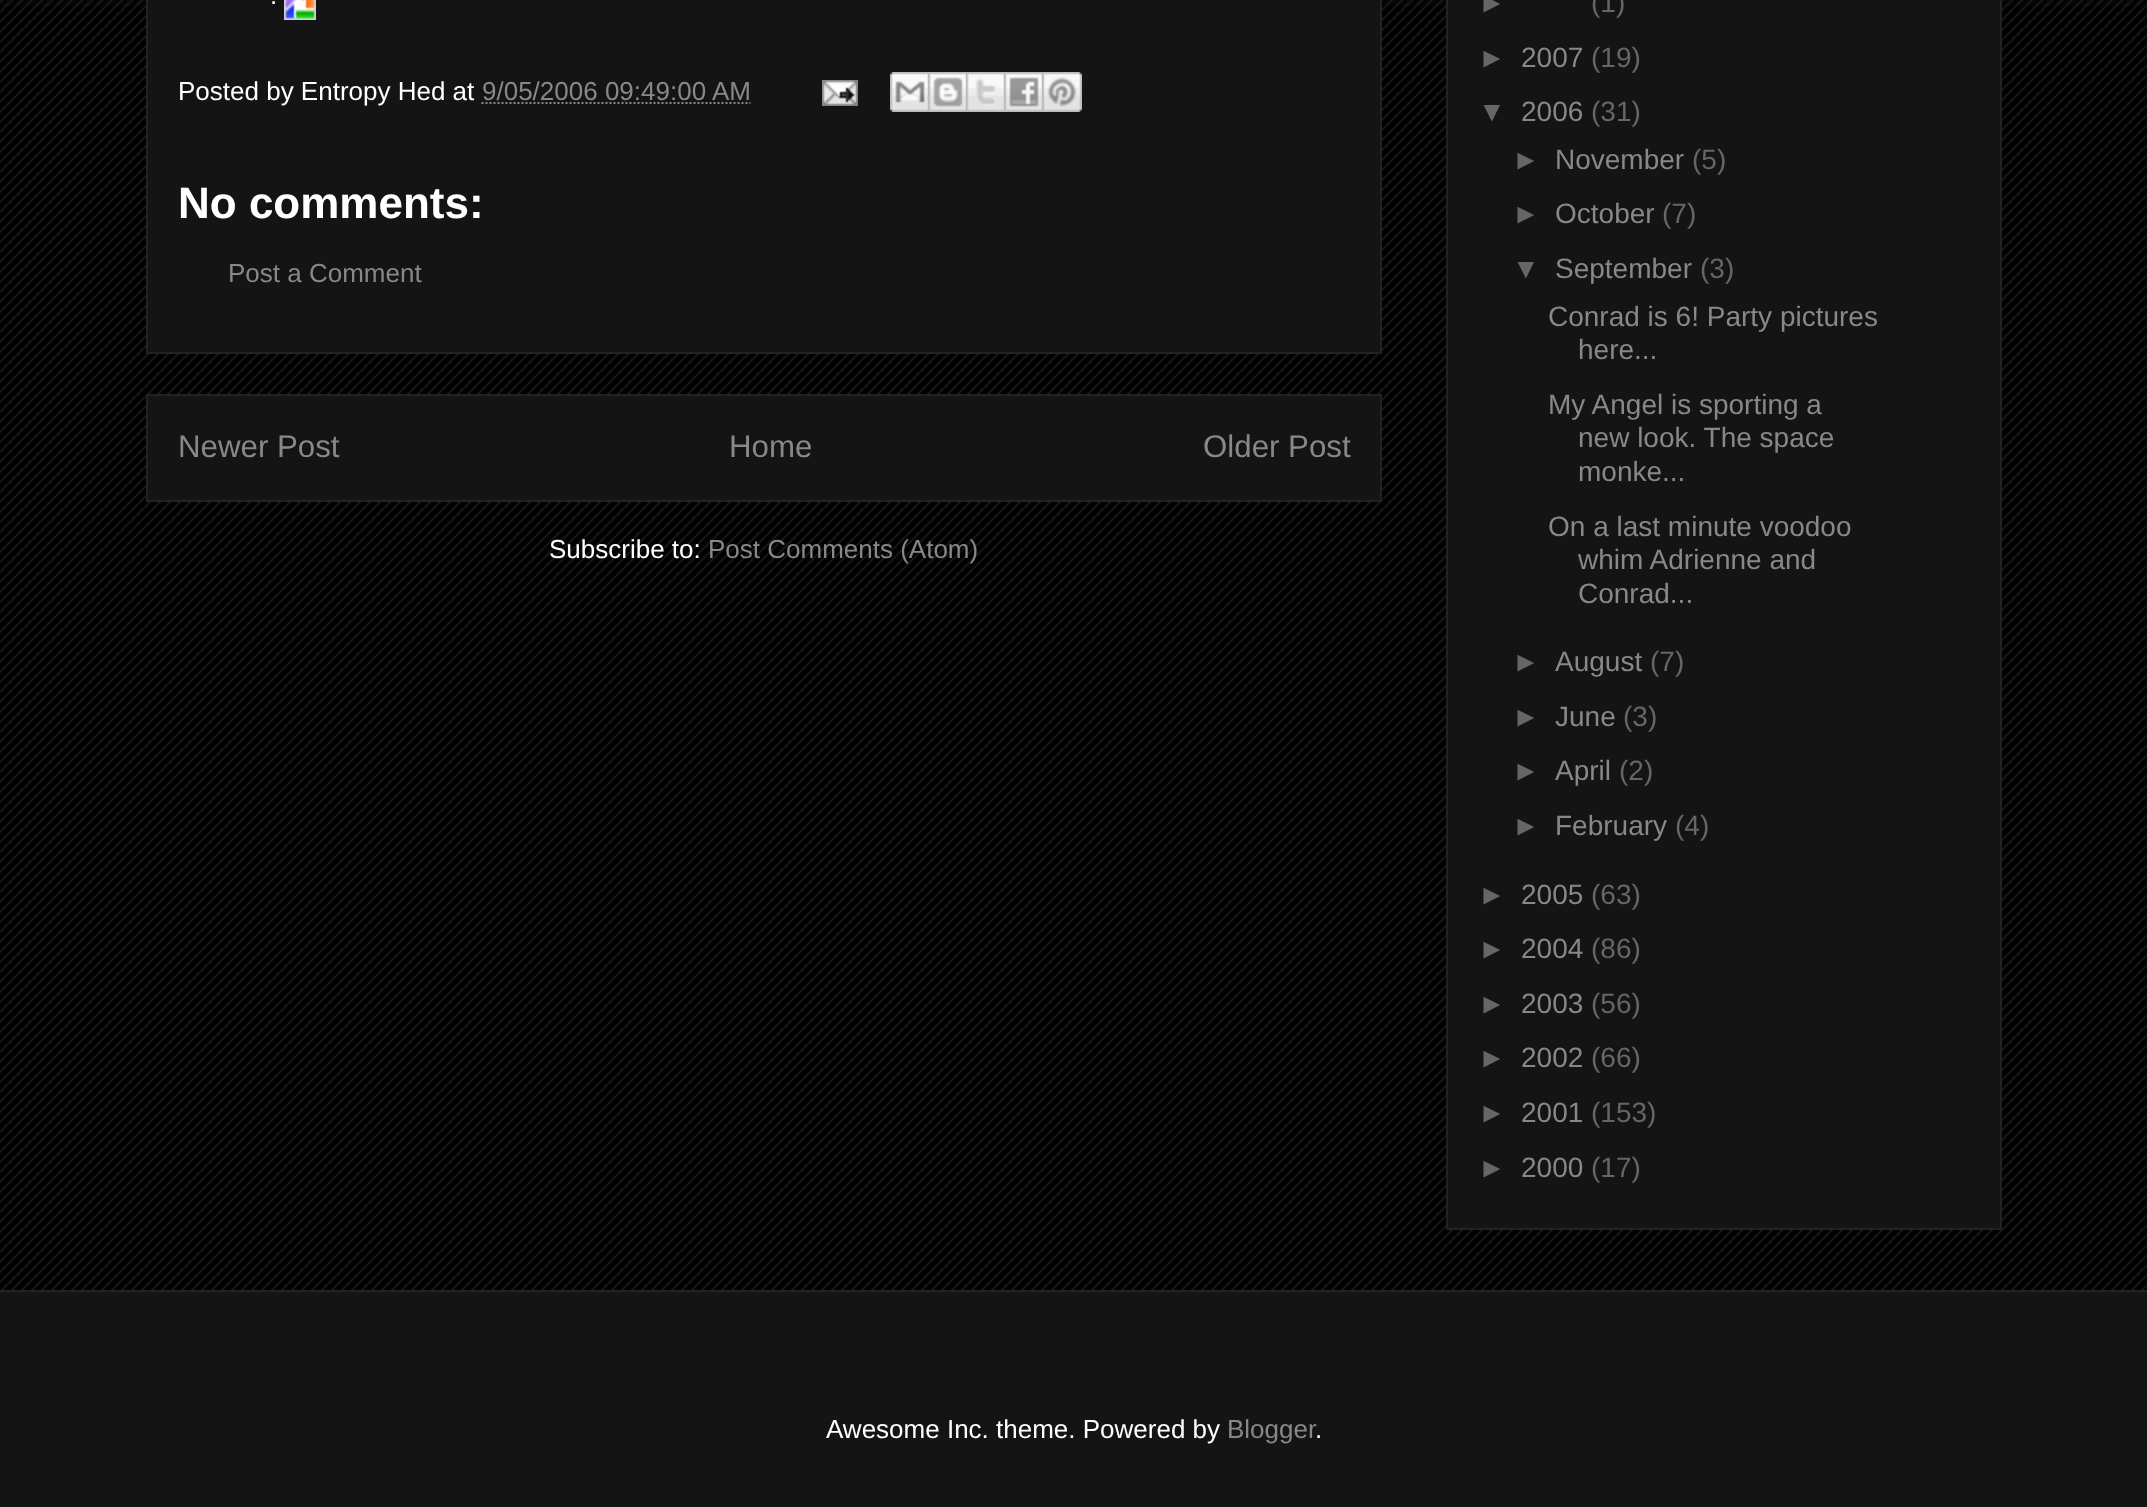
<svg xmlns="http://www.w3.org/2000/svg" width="2147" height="1507">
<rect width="100%" height="100%" fill="#000"/>
<image x="0" y="0" width="2147" height="1290" href="media/1.png"/>
<image x="0" y="0" width="2147" height="6" href="media/2.png"/>
<rect x="147" y="-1" width="1234" height="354" fill="#141414" stroke="#222" stroke-width="2"/>
<text x="270" y="4" style="font-family:Liberation Sans;font-size:26px;fill:#fff">.</text>
<image x="284" y="0" width="32" height="20" href="media/3.png"/>
<text x="178" y="100" style="font-family:Liberation Sans;font-size:26px;fill:#fff">Posted by Entropy Hed at</text>
<text x="482" y="100" style="font-family:Liberation Sans;font-size:26px;fill:#888">9/05/2006 09:49:00 AM</text>
<path d="M481.5 103h269" fill="none" stroke="#888" stroke-width="2" stroke-dasharray="2 2"/>
<image x="822" y="80" width="36" height="26" href="media/4.png"/>
<image x="890" y="72" width="38" height="40" href="media/5.png"/>
<image x="928" y="72" width="38" height="40" href="media/6.png"/>
<image x="966" y="72" width="38" height="40" href="media/7.png"/>
<image x="1004" y="72" width="38" height="40" href="media/8.png"/>
<image x="1042" y="72" width="40" height="40" href="media/9.png"/>
<text x="178" y="218" style="font-family:Liberation Sans;font-size:44px;font-weight:bold;fill:#fff">No comments:</text>
<text x="228" y="282" style="font-family:Liberation Sans;font-size:26px;fill:#888">Post a Comment</text>
<rect x="147" y="395" width="1234" height="106" fill="#141414" stroke="#222" stroke-width="2"/>
<text x="178" y="457" style="font-family:Liberation Sans;font-size:31.25px;fill:#888">Newer Post</text>
<text x="729" y="457" style="font-family:Liberation Sans;font-size:31.25px;fill:#888">Home</text>
<text x="1203" y="457" style="font-family:Liberation Sans;font-size:31.25px;fill:#888">Older Post</text>
<text x="549" y="558" style="font-family:Liberation Sans;font-size:26px;fill:#fff">Subscribe to:</text>
<text x="708" y="558" style="font-family:Liberation Sans;font-size:26px;fill:#888">Post Comments (Atom)</text>
<rect x="1447" y="-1" width="554" height="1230" fill="#141414" stroke="#222" stroke-width="2"/>
<text x="1478" y="12" style="font-family:Liberation Sans;font-size:28px;fill:#666">►</text>
<text x="1591" y="12" style="font-family:Liberation Sans;font-size:28px;fill:#666">(1)</text>
<text x="1478" y="67" style="font-family:Liberation Sans;font-size:28px;fill:#666">►</text>
<text x="1521" y="67" style="font-family:Liberation Sans;font-size:28px;fill:#888">2007</text>
<text x="1591" y="67" style="font-family:Liberation Sans;font-size:28px;fill:#666">(19)</text>
<text x="1478" y="121" style="font-family:Liberation Sans;font-size:28px;fill:#666">▼</text>
<text x="1521" y="121" style="font-family:Liberation Sans;font-size:28px;fill:#888">2006</text>
<text x="1591" y="121" style="font-family:Liberation Sans;font-size:28px;fill:#666">(31)</text>
<text x="1512" y="169" style="font-family:Liberation Sans;font-size:28px;fill:#666">►</text>
<text x="1555" y="169" style="font-family:Liberation Sans;font-size:28px;fill:#888">November</text>
<text x="1692" y="169" style="font-family:Liberation Sans;font-size:28px;fill:#666">(5)</text>
<text x="1512" y="223" style="font-family:Liberation Sans;font-size:28px;fill:#666">►</text>
<text x="1555" y="223" style="font-family:Liberation Sans;font-size:28px;fill:#888">October</text>
<text x="1662" y="223" style="font-family:Liberation Sans;font-size:28px;fill:#666">(7)</text>
<text x="1512" y="278" style="font-family:Liberation Sans;font-size:28px;fill:#666">▼</text>
<text x="1555" y="278" style="font-family:Liberation Sans;font-size:28px;fill:#888">September</text>
<text x="1700" y="278" style="font-family:Liberation Sans;font-size:28px;fill:#666">(3)</text>
<text x="1548" y="326" style="font-family:Liberation Sans;font-size:28px;fill:#888">Conrad is 6! Party pictures</text>
<text x="1578" y="359" style="font-family:Liberation Sans;font-size:28px;fill:#888">here...</text>
<text x="1548" y="414" style="font-family:Liberation Sans;font-size:28px;fill:#888">My Angel is sporting a</text>
<text x="1578" y="447" style="font-family:Liberation Sans;font-size:28px;fill:#888">new look. The space</text>
<text x="1578" y="481" style="font-family:Liberation Sans;font-size:28px;fill:#888">monke...</text>
<text x="1548" y="536" style="font-family:Liberation Sans;font-size:28px;fill:#888">On a last minute voodoo</text>
<text x="1578" y="569" style="font-family:Liberation Sans;font-size:28px;fill:#888">whim Adrienne and</text>
<text x="1578" y="603" style="font-family:Liberation Sans;font-size:28px;fill:#888">Conrad...</text>
<text x="1512" y="671" style="font-family:Liberation Sans;font-size:28px;fill:#666">►</text>
<text x="1555" y="671" style="font-family:Liberation Sans;font-size:28px;fill:#888">August</text>
<text x="1650" y="671" style="font-family:Liberation Sans;font-size:28px;fill:#666">(7)</text>
<text x="1512" y="726" style="font-family:Liberation Sans;font-size:28px;fill:#666">►</text>
<text x="1555" y="726" style="font-family:Liberation Sans;font-size:28px;fill:#888">June</text>
<text x="1623" y="726" style="font-family:Liberation Sans;font-size:28px;fill:#666">(3)</text>
<text x="1512" y="780" style="font-family:Liberation Sans;font-size:28px;fill:#666">►</text>
<text x="1555" y="780" style="font-family:Liberation Sans;font-size:28px;fill:#888">April</text>
<text x="1619" y="780" style="font-family:Liberation Sans;font-size:28px;fill:#666">(2)</text>
<text x="1512" y="835" style="font-family:Liberation Sans;font-size:28px;fill:#666">►</text>
<text x="1555" y="835" style="font-family:Liberation Sans;font-size:28px;fill:#888">February</text>
<text x="1675" y="835" style="font-family:Liberation Sans;font-size:28px;fill:#666">(4)</text>
<text x="1478" y="904" style="font-family:Liberation Sans;font-size:28px;fill:#666">►</text>
<text x="1521" y="904" style="font-family:Liberation Sans;font-size:28px;fill:#888">2005</text>
<text x="1591" y="904" style="font-family:Liberation Sans;font-size:28px;fill:#666">(63)</text>
<text x="1478" y="958" style="font-family:Liberation Sans;font-size:28px;fill:#666">►</text>
<text x="1521" y="958" style="font-family:Liberation Sans;font-size:28px;fill:#888">2004</text>
<text x="1591" y="958" style="font-family:Liberation Sans;font-size:28px;fill:#666">(86)</text>
<text x="1478" y="1013" style="font-family:Liberation Sans;font-size:28px;fill:#666">►</text>
<text x="1521" y="1013" style="font-family:Liberation Sans;font-size:28px;fill:#888">2003</text>
<text x="1591" y="1013" style="font-family:Liberation Sans;font-size:28px;fill:#666">(56)</text>
<text x="1478" y="1067" style="font-family:Liberation Sans;font-size:28px;fill:#666">►</text>
<text x="1521" y="1067" style="font-family:Liberation Sans;font-size:28px;fill:#888">2002</text>
<text x="1591" y="1067" style="font-family:Liberation Sans;font-size:28px;fill:#666">(66)</text>
<text x="1478" y="1122" style="font-family:Liberation Sans;font-size:28px;fill:#666">►</text>
<text x="1521" y="1122" style="font-family:Liberation Sans;font-size:28px;fill:#888">2001</text>
<text x="1591" y="1122" style="font-family:Liberation Sans;font-size:28px;fill:#666">(153)</text>
<text x="1478" y="1177" style="font-family:Liberation Sans;font-size:28px;fill:#666">►</text>
<text x="1521" y="1177" style="font-family:Liberation Sans;font-size:28px;fill:#888">2000</text>
<text x="1591" y="1177" style="font-family:Liberation Sans;font-size:28px;fill:#666">(17)</text>
<rect y="1292" width="2147" height="215" fill="#141414"/>
<rect y="1290" width="2147" height="2" fill="#222"/>
<text x="826" y="1438" style="font-family:Liberation Sans;font-size:26px;fill:#fff">Awesome Inc. theme. Powered by</text>
<text x="1227" y="1438" style="font-family:Liberation Sans;font-size:26px;fill:#888">Blogger</text>
<text x="1315" y="1438" style="font-family:Liberation Sans;font-size:26px;fill:#fff">.</text>
</svg>
